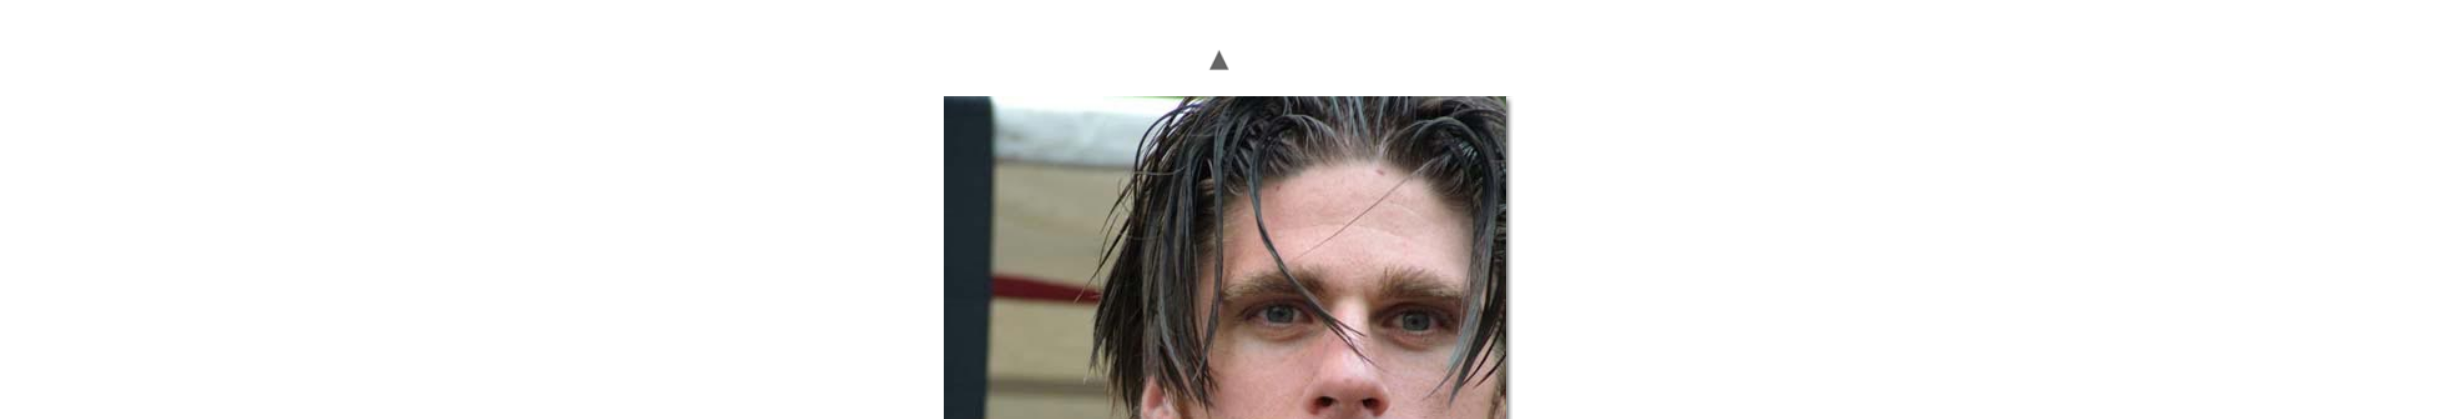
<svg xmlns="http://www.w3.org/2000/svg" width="2437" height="419">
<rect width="100%" height="100%" fill="#fff"/>
<image x="1208" y="49" width="21" height="22" href="media/1.png"/>
<image x="1506" y="96" width="7" height="323" href="media/3.png"/>
<image x="943" y="96" width="564" height="323" href="media/2.png"/>
<image x="1506" y="96" width="8" height="34" href="media/4.png"/>
</svg>
